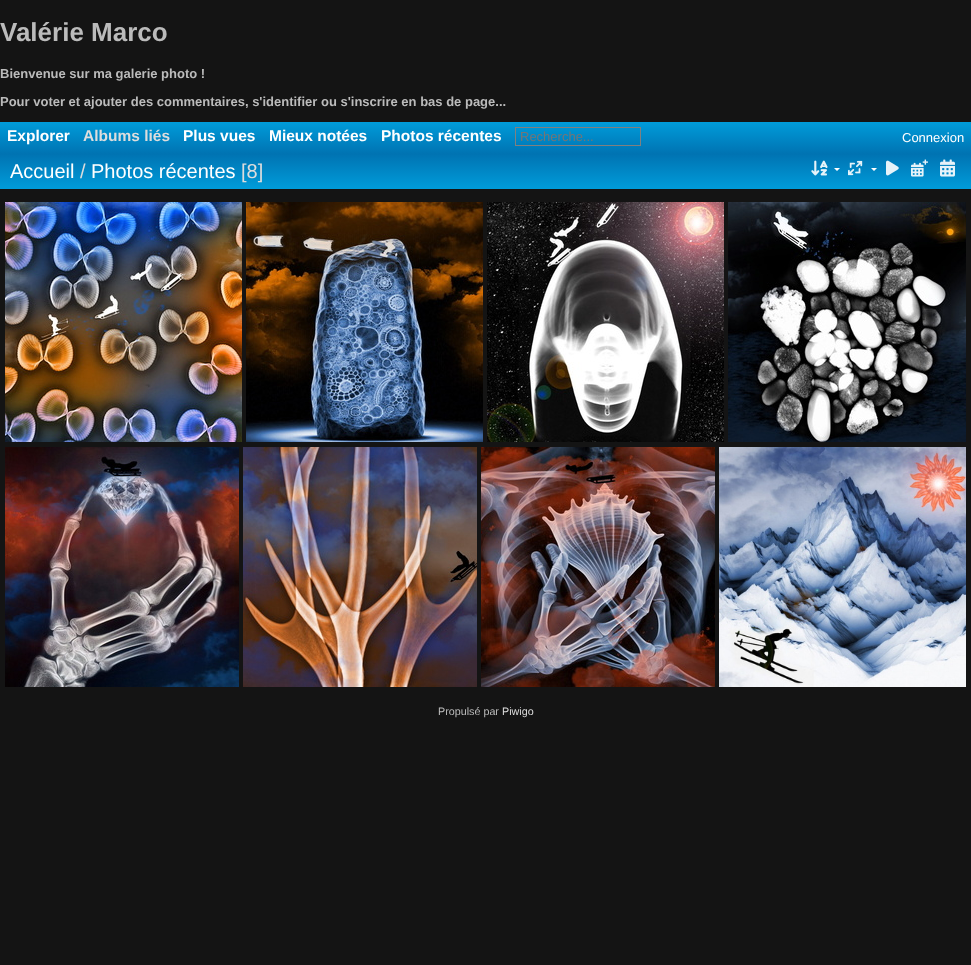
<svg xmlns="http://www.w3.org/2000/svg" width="971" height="965">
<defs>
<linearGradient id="g1" gradientUnits="userSpaceOnUse" x1="486" y1="122" x2="486" y2="154"><stop offset="0" stop-color="#009cda"/><stop offset="1" stop-color="#0073b2"/></linearGradient>
<linearGradient id="g2" gradientUnits="userSpaceOnUse" x1="486" y1="154" x2="486" y2="189"><stop offset="0" stop-color="#0073b2"/><stop offset="1" stop-color="#009cda"/></linearGradient>
</defs>
<rect width="100%" height="100%" fill="#141414"/>
<text x="0" y="41" style="font-family:Liberation Sans;font-size:26px;font-weight:bold;fill:#bbb">Valérie Marco</text>
<text x="0" y="78" style="font-family:Liberation Sans;font-size:13px;font-weight:bold;fill:#bbb">Bienvenue sur ma galerie photo !</text>
<text x="0" y="106" style="font-family:Liberation Sans;font-size:13px;font-weight:bold;fill:#bbb">Pour voter et ajouter des commentaires, s'identifier ou s'inscrire en bas de page...</text>
<rect y="122" width="971" height="32" fill="url(#g1)"/>
<text x="7" y="141" style="font-family:Liberation Sans;font-size:15.5px;font-weight:bold;fill:#fff">Explorer</text>
<text x="83" y="141" style="font-family:Liberation Sans;font-size:15.5px;font-weight:bold;fill:#ddd">Albums liés</text>
<text x="183" y="141" style="font-family:Liberation Sans;font-size:15.5px;font-weight:bold;fill:#fff">Plus vues</text>
<text x="269" y="141" style="font-family:Liberation Sans;font-size:15.5px;font-weight:bold;fill:#fff">Mieux notées</text>
<text x="381" y="141" style="font-family:Liberation Sans;font-size:15.5px;font-weight:bold;fill:#fff">Photos récentes</text>
<rect x="515.5" y="127.5" width="125" height="18" fill="none" stroke="#808080"/>
<text x="520" y="141" style="font-family:Liberation Sans;font-size:13px;fill:#757575">Recherche...</text>
<text x="902" y="142" style="font-family:Liberation Sans;font-size:13px;fill:#fff">Connexion</text>
<rect y="154" width="971" height="35" fill="url(#g2)"/>
<text x="10" y="178" style="font-family:Liberation Sans;font-size:20px;fill:#fff">Accueil</text>
<text x="80" y="178" style="font-family:Liberation Sans;font-size:20px;fill:#ddd">/</text>
<text x="91" y="178" style="font-family:Liberation Sans;font-size:20px;fill:#fff">Photos récentes</text>
<text x="241" y="178" style="font-family:Liberation Sans;font-size:20px;fill:#ddd">[8]</text>
<image x="811" y="160" width="17" height="16" href="media/1.png"/>
<path d="M834 168h6l-3 3zm37 0h6l-3 3z" fill="#fff"/>
<image x="911" y="159" width="17" height="18" href="media/2.png"/>
<image x="940" y="159" width="15" height="18" href="media/3.png"/>
<image x="848" y="160" width="15" height="16" href="media/4.png"/>
<image x="886" y="160" width="13" height="16" href="media/5.png"/>
<image x="5" y="202" width="237" height="240" href="media/6.png"/>
<image x="246" y="202" width="237" height="240" href="media/7.png"/>
<image x="487" y="202" width="237" height="240" href="media/8.png"/>
<image x="728" y="202" width="238" height="240" href="media/9.png"/>
<image x="5" y="447" width="234" height="240" href="media/10.png"/>
<image x="243" y="447" width="234" height="240" href="media/11.png"/>
<image x="481" y="447" width="234" height="240" href="media/12.png"/>
<image x="719" y="447" width="247" height="240" href="media/13.png"/>
<text x="438" y="715" style="font-family:Liberation Sans;font-size:10.75px;fill:#bbb">Propulsé par</text>
<text x="502" y="715" style="font-family:Liberation Sans;font-size:10.75px;fill:#ddd">Piwigo</text>
</svg>
